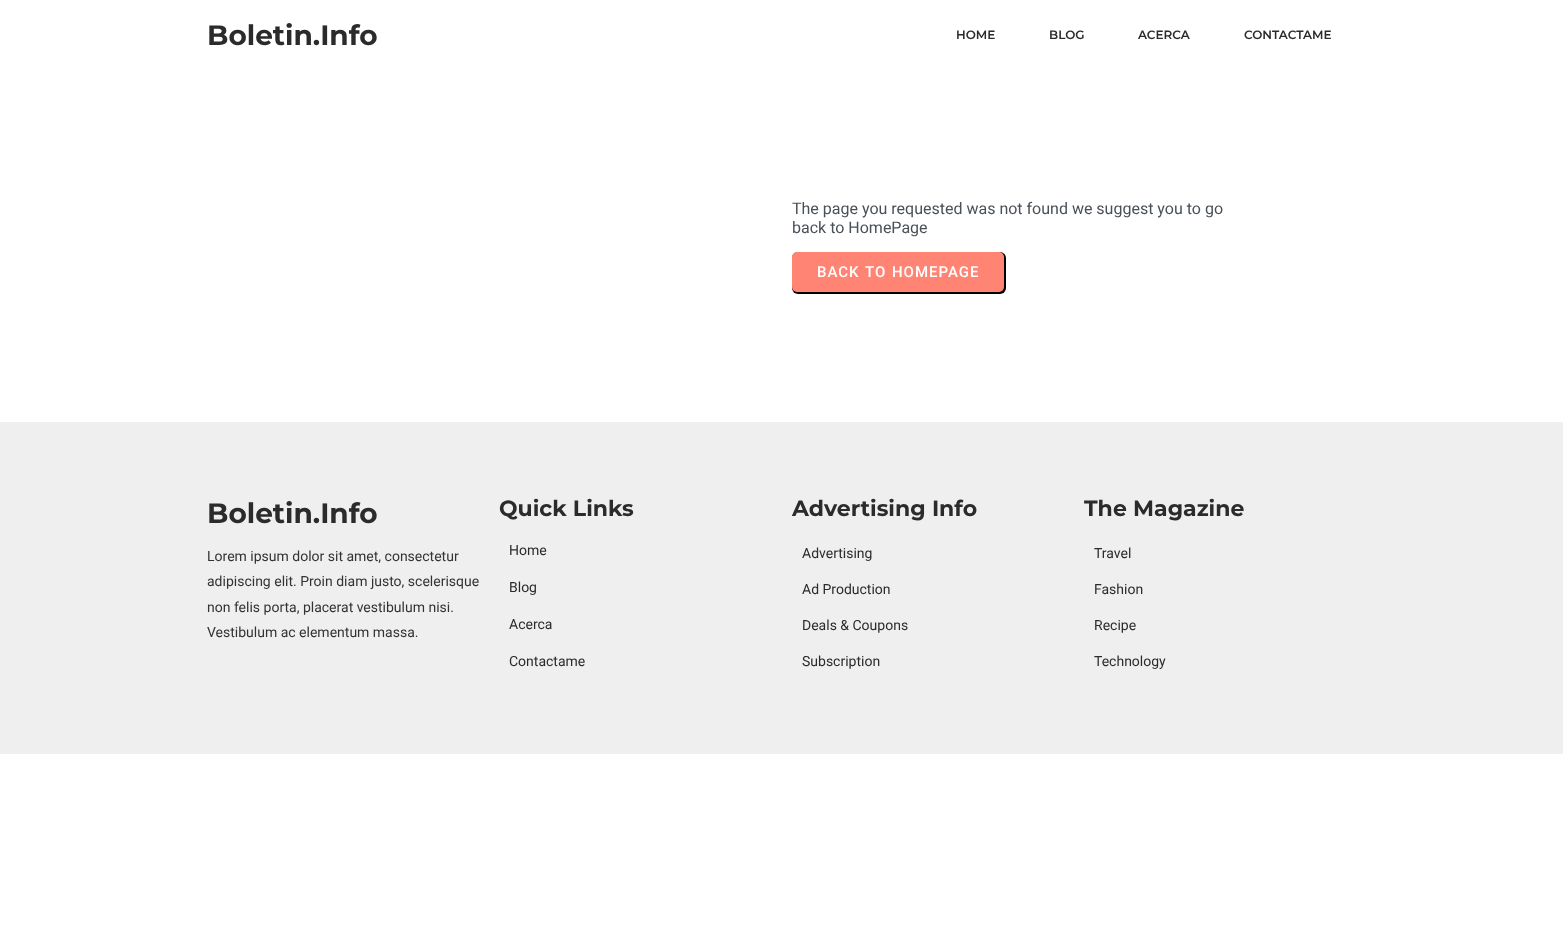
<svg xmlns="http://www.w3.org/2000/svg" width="1563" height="939">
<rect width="100%" height="100%" fill="#fff"/>
<text x="207" y="45" style="font-family:Montserrat;font-size:28px;font-weight:bold;fill:#2b2b2b">Boletin.Info</text>
<text x="956" y="39" style="font-family:Montserrat;font-size:12px;font-weight:600;fill:#2b2b2b">HOME</text>
<text x="1049" y="39" style="font-family:Montserrat;font-size:12px;font-weight:600;fill:#2b2b2b">BLOG</text>
<text x="1138" y="39" style="font-family:Montserrat;font-size:12px;font-weight:600;fill:#2b2b2b">ACERCA</text>
<text x="1244" y="39" style="font-family:Montserrat;font-size:12px;font-weight:600;fill:#2b2b2b">CONTACTAME</text>
<text x="792" y="214" style="font-family:Roboto;font-size:16px;fill:#495057">The page you requested was not found we suggest you to go</text>
<text x="792" y="233" style="font-family:Roboto;font-size:16px;fill:#495057">back to HomePage</text>
<rect x="792" y="252" width="214" height="42" rx="6" fill="#000" filter="blur(0.5px)"/>
<rect x="792" y="252" width="212" height="40" rx="5" fill="#ff8474"/>
<text x="817" y="277" word-spacing="1" style="font-family:Roboto;font-size:15px;font-weight:500;letter-spacing:1px;fill:#fff">BACK TO HOMEPAGE</text>
<rect y="422" width="1563" height="332" fill="#efefef"/>
<text x="207" y="523" style="font-family:Montserrat;font-size:28px;font-weight:bold;fill:#2b2b2b">Boletin.Info</text>
<text x="207" y="561" style="font-family:Roboto;font-size:14px;fill:#333">Lorem ipsum dolor sit amet, consectetur</text>
<text x="207" y="586" style="font-family:Roboto;font-size:14px;fill:#333">adipiscing elit. Proin diam justo, scelerisque</text>
<text x="207" y="612" style="font-family:Roboto;font-size:14px;fill:#333">non felis porta, placerat vestibulum nisi.</text>
<text x="207" y="637" style="font-family:Roboto;font-size:14px;fill:#333">Vestibulum ac elementum massa.</text>
<text x="499" y="516" style="font-family:Montserrat;font-size:22px;font-weight:bold;fill:#2b2b2b">Quick Links</text>
<text x="509" y="555" style="font-family:Roboto;font-size:14px;fill:#2b2b2b">Home</text>
<text x="509" y="592" style="font-family:Roboto;font-size:14px;fill:#2b2b2b">Blog</text>
<text x="509" y="629" style="font-family:Roboto;font-size:14px;fill:#2b2b2b">Acerca</text>
<text x="509" y="666" style="font-family:Roboto;font-size:14px;fill:#2b2b2b">Contactame</text>
<text x="792" y="516" style="font-family:Montserrat;font-size:22px;font-weight:bold;fill:#2b2b2b">Advertising Info</text>
<text x="802" y="558" style="font-family:Roboto;font-size:14px;fill:#2b2b2b">Advertising</text>
<text x="802" y="594" style="font-family:Roboto;font-size:14px;fill:#2b2b2b">Ad Production</text>
<text x="802" y="630" style="font-family:Roboto;font-size:14px;fill:#2b2b2b">Deals &amp; Coupons</text>
<text x="802" y="666" style="font-family:Roboto;font-size:14px;fill:#2b2b2b">Subscription</text>
<text x="1084" y="516" style="font-family:Montserrat;font-size:22px;font-weight:bold;fill:#2b2b2b">The Magazine</text>
<text x="1094" y="558" style="font-family:Roboto;font-size:14px;fill:#2b2b2b">Travel</text>
<text x="1094" y="594" style="font-family:Roboto;font-size:14px;fill:#2b2b2b">Fashion</text>
<text x="1094" y="630" style="font-family:Roboto;font-size:14px;fill:#2b2b2b">Recipe</text>
<text x="1094" y="666" style="font-family:Roboto;font-size:14px;fill:#2b2b2b">Technology</text>
</svg>
